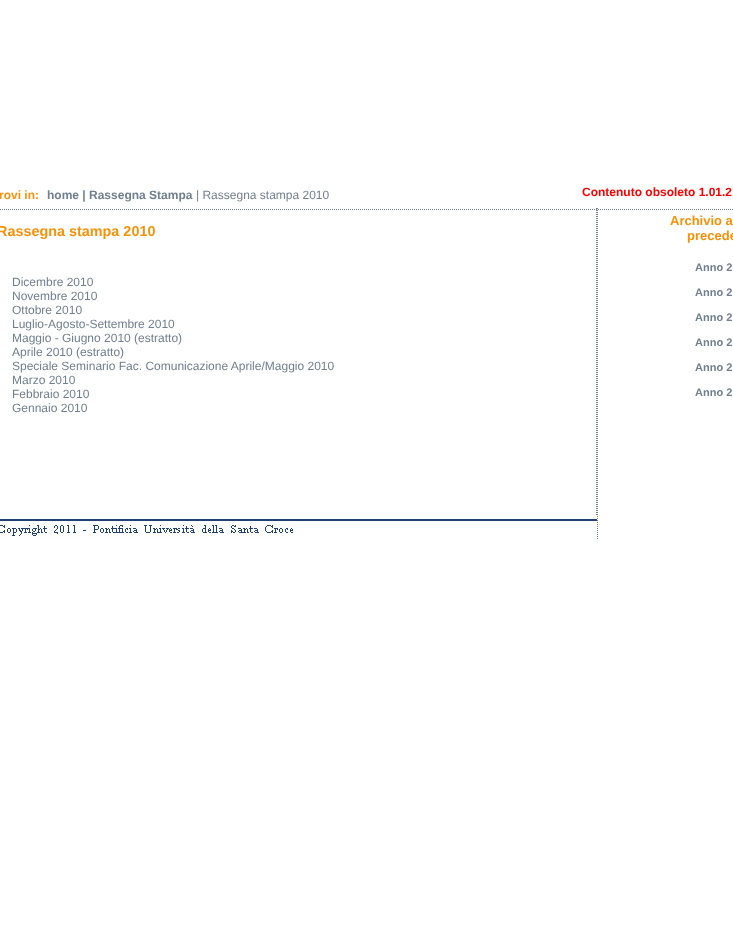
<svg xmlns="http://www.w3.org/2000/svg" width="733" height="932">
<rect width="100%" height="100%" fill="#fff"/>
<image x="0" y="209" width="733" height="1" href="media/1.png"/>
<text x="-1" y="199" style="font-family:Liberation Sans;font-size:12px;font-weight:bold;fill:#f5920a">rovi in:</text>
<text x="47" y="199" style="font-family:Liberation Sans;font-size:12px;font-weight:bold;fill:#707f8e">home | Rassegna Stampa</text>
<text x="196" y="199" style="font-family:Liberation Sans;font-size:12px;fill:#707f8e">| Rassegna stampa 2010</text>
<text x="582" y="196" style="font-family:Liberation Sans;font-size:12px;font-weight:bold;fill:#f00">Contenuto obsoleto 1.01.2</text>
<image x="596" y="208" width="2" height="331" href="media/2.png"/>
<text x="-3" y="236" style="font-family:Liberation Sans;font-size:14.4px;font-weight:bold;fill:#f5920a">Rassegna stampa 2010</text>
<text x="12" y="286" style="font-family:Liberation Sans;font-size:12px;fill:#707f8e">Dicembre 2010</text>
<text x="12" y="300" style="font-family:Liberation Sans;font-size:12px;fill:#707f8e">Novembre 2010</text>
<text x="12" y="314" style="font-family:Liberation Sans;font-size:12px;fill:#707f8e">Ottobre 2010</text>
<text x="12" y="328" style="font-family:Liberation Sans;font-size:12px;fill:#707f8e">Luglio-Agosto-Settembre 2010</text>
<text x="12" y="342" style="font-family:Liberation Sans;font-size:12px;fill:#707f8e">Maggio - Giugno 2010 (estratto)</text>
<text x="12" y="356" style="font-family:Liberation Sans;font-size:12px;fill:#707f8e">Aprile 2010 (estratto)</text>
<text x="12" y="370" style="font-family:Liberation Sans;font-size:12px;fill:#707f8e">Speciale Seminario Fac. Comunicazione Aprile/Maggio 2010</text>
<text x="12" y="384" style="font-family:Liberation Sans;font-size:12px;fill:#707f8e">Marzo 2010</text>
<text x="12" y="398" style="font-family:Liberation Sans;font-size:12px;fill:#707f8e">Febbraio 2010</text>
<text x="12" y="412" style="font-family:Liberation Sans;font-size:12px;fill:#707f8e">Gennaio 2010</text>
<image x="0" y="516" width="597" height="23" href="media/3.png"/>
<text x="670" y="225" style="font-family:Liberation Sans;font-size:13px;font-weight:bold;fill:#f5920a">Archivio a</text>
<text x="687" y="240" style="font-family:Liberation Sans;font-size:13px;font-weight:bold;fill:#f5920a">precede</text>
<text x="695" y="271" style="font-family:Liberation Sans;font-size:11px;font-weight:bold;fill:#707f8e">Anno 2</text>
<text x="695" y="296" style="font-family:Liberation Sans;font-size:11px;font-weight:bold;fill:#707f8e">Anno 2</text>
<text x="695" y="321" style="font-family:Liberation Sans;font-size:11px;font-weight:bold;fill:#707f8e">Anno 2</text>
<text x="695" y="346" style="font-family:Liberation Sans;font-size:11px;font-weight:bold;fill:#707f8e">Anno 2</text>
<text x="695" y="371" style="font-family:Liberation Sans;font-size:11px;font-weight:bold;fill:#707f8e">Anno 2</text>
<text x="695" y="396" style="font-family:Liberation Sans;font-size:11px;font-weight:bold;fill:#707f8e">Anno 2</text>
</svg>
